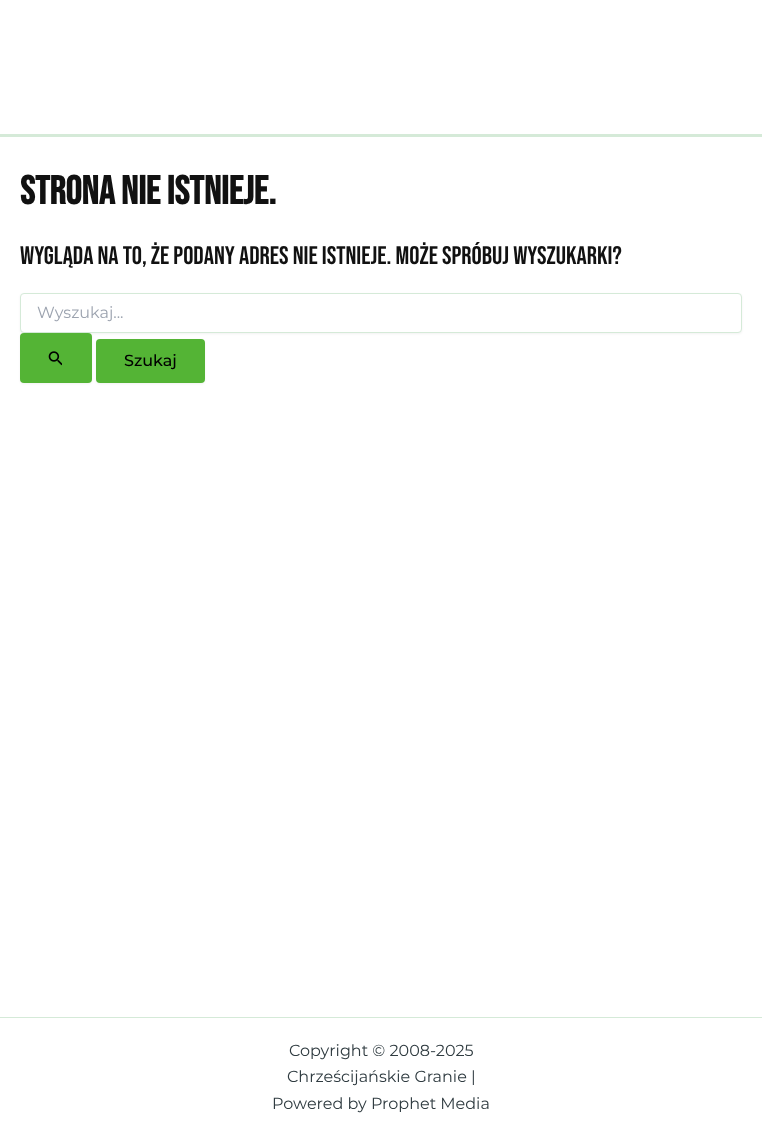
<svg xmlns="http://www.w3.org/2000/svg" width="762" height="1147">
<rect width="100%" height="100%" fill="#fff"/>
<rect y="134" width="762" height="3" fill="#d5ead8"/>
<text x="20" y="204" style="font-family:Bebas Neue;font-size:40px;font-weight:bold;fill:#111">Strona nie istnieje.</text>
<text x="20" y="264" style="font-family:Bebas Neue;font-size:25.5px;fill:#111">Wygląda na to, że podany adres nie istnieje. Może spróbuj wyszukarki?</text>
<rect x="20" y="294" width="722" height="40" rx="4" fill="#0000000d" filter="blur(1px)"/>
<rect x="20.5" y="293.5" width="721" height="39" rx="3.5" fill="#fff" stroke="#d5ead8"/>
<text x="37" y="318" style="font-family:Montserrat;font-size:16px;fill:#9ca3af">Wyszukaj...</text>
<rect x="20" y="334" width="72" height="50" rx="4" fill="#0000000d" filter="blur(1px)"/>
<rect x="20" y="333" width="72" height="50" rx="4" fill="#54b435"/>
<image x="48" y="351" width="14" height="15" href="media/1.png"/>
<rect x="96" y="340" width="109" height="44" rx="4" fill="#0000000d" filter="blur(1px)"/>
<rect x="96" y="339" width="109" height="44" rx="4" fill="#54b435"/>
<text x="124" y="366" style="font-family:Montserrat;font-size:16px;font-weight:500;fill:#000">Szukaj</text>
<rect y="1017" width="762" height="1" fill="#d5ead8"/>
<text x="289" y="1056" style="font-family:Montserrat;font-size:16px;fill:#2f3b40">Copyright © 2008-2025</text>
<text x="287" y="1082" style="font-family:Montserrat;font-size:16px;fill:#2f3b40">Chrześcijańskie Granie |</text>
<text x="272" y="1109" style="font-family:Montserrat;font-size:16px;fill:#2f3b40">Powered by Prophet Media</text>
</svg>
